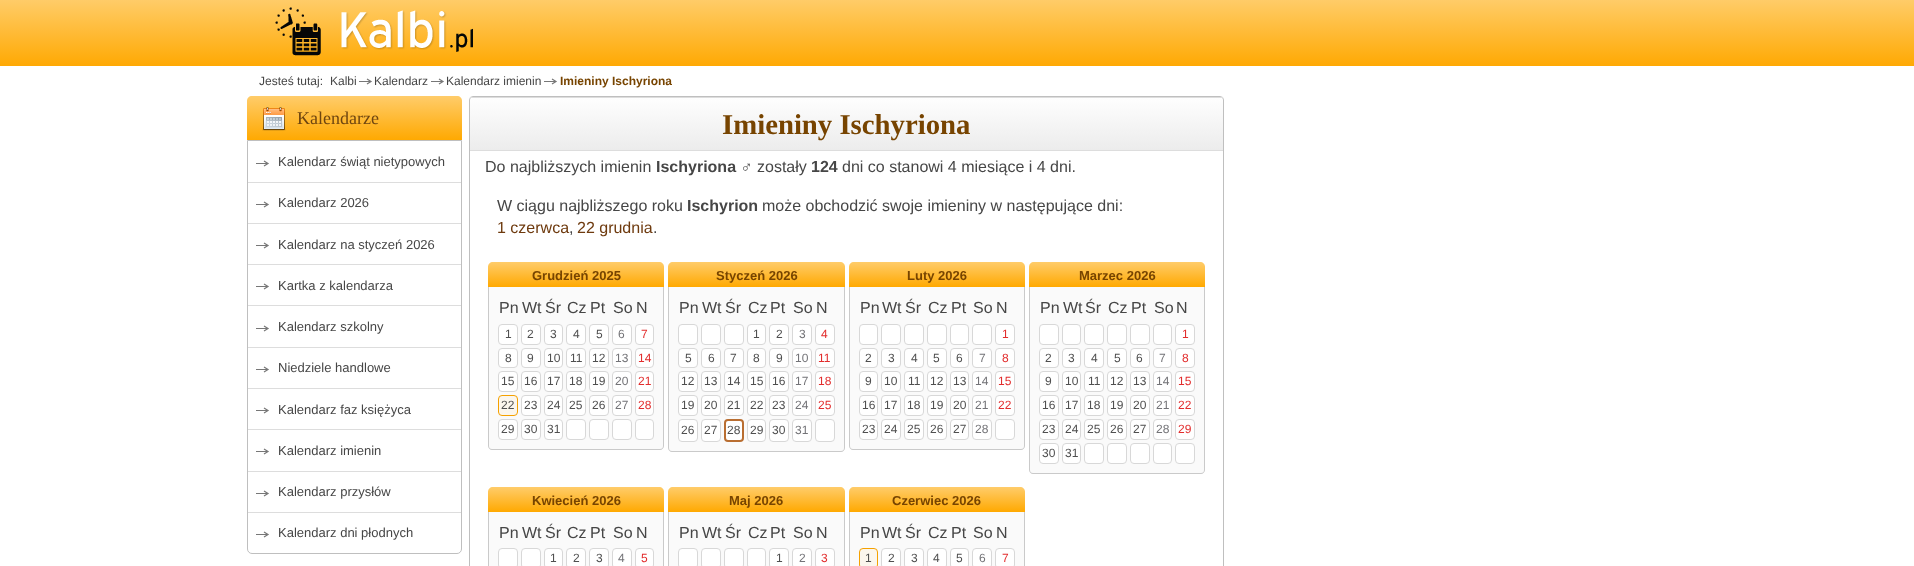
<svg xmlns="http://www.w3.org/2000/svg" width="1914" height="566">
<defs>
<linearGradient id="g1" gradientUnits="userSpaceOnUse" x1="957" y1="0" x2="957" y2="66"><stop offset="0" stop-color="#ffcc68"/><stop offset="1" stop-color="#ffa903"/></linearGradient>
<linearGradient id="g2" gradientUnits="userSpaceOnUse" x1="355" y1="96" x2="355" y2="140"><stop offset="0" stop-color="#ffcc6a"/><stop offset="1" stop-color="#ffa901"/></linearGradient>
<linearGradient id="g3" gradientUnits="userSpaceOnUse" x1="847" y1="98" x2="847" y2="150"><stop offset="0" stop-color="#fefefe"/><stop offset="1" stop-color="#ececec"/></linearGradient>
<linearGradient id="g4" gradientUnits="userSpaceOnUse" x1="576" y1="262" x2="576" y2="287"><stop offset="0" stop-color="#ffcc6a"/><stop offset="1" stop-color="#ffa901"/></linearGradient>
<linearGradient id="g5" gradientUnits="userSpaceOnUse" x1="757" y1="262" x2="757" y2="287"><stop offset="0" stop-color="#ffcc6a"/><stop offset="1" stop-color="#ffa901"/></linearGradient>
<linearGradient id="g6" gradientUnits="userSpaceOnUse" x1="937" y1="262" x2="937" y2="287"><stop offset="0" stop-color="#ffcc6a"/><stop offset="1" stop-color="#ffa901"/></linearGradient>
<linearGradient id="g7" gradientUnits="userSpaceOnUse" x1="1117" y1="262" x2="1117" y2="287"><stop offset="0" stop-color="#ffcc6a"/><stop offset="1" stop-color="#ffa901"/></linearGradient>
<linearGradient id="g8" gradientUnits="userSpaceOnUse" x1="576" y1="487" x2="576" y2="512"><stop offset="0" stop-color="#ffcc6a"/><stop offset="1" stop-color="#ffa901"/></linearGradient>
<linearGradient id="g9" gradientUnits="userSpaceOnUse" x1="757" y1="487" x2="757" y2="512"><stop offset="0" stop-color="#ffcc6a"/><stop offset="1" stop-color="#ffa901"/></linearGradient>
<linearGradient id="g10" gradientUnits="userSpaceOnUse" x1="937" y1="487" x2="937" y2="512"><stop offset="0" stop-color="#ffcc6a"/><stop offset="1" stop-color="#ffa901"/></linearGradient>
</defs>
<rect width="100%" height="100%" fill="#fff"/>
<rect width="1914" height="66" fill="url(#g1)"/>
<image x="275" y="7" width="198" height="49" href="media/1.png"/>
<text x="259" y="85" style="font-family:Liberation Sans;font-size:12px;fill:#464646">Jesteś tutaj:</text>
<text x="330" y="85" style="font-family:Liberation Sans;font-size:12px;fill:#464646">Kalbi</text>
<path d="M359 81.5h11m-3-2.5l4 2.5l-4 2.5" fill="none" stroke="#777" stroke-width="1.2"/>
<text x="374" y="85" style="font-family:Liberation Sans;font-size:12px;fill:#464646">Kalendarz</text>
<path d="M431 81.5h11m-3-2.5l4 2.5l-4 2.5" fill="none" stroke="#777" stroke-width="1.2"/>
<text x="446" y="85" style="font-family:Liberation Sans;font-size:12px;fill:#464646">Kalendarz imienin</text>
<path d="M544 81.5h11m-3-2.5l4 2.5l-4 2.5" fill="none" stroke="#777" stroke-width="1.2"/>
<text x="560" y="85" style="font-family:Liberation Sans;font-size:12px;font-weight:bold;fill:#740">Imieniny Ischyriona</text>
<path d="M252 96h205c3 0 5 2 5 5v39h-215v-39c0-3 2-5 5-5z" fill="url(#g2)"/>
<image x="262" y="107" width="24" height="24" href="media/2.png"/>
<text x="297" y="124" style="font-family:Liberation Serif;font-size:18px;fill:#6e4510">Kalendarze</text>
<path d="M247.5 140.5h214v408.5c0 2.5-2 4.5-4.5 4.5h-205c-2.5 0-4.5-2-4.5-4.5z" fill="none" stroke="#bfbfbf"/>
<path d="M256 163.5h11m-3-2.5l4 2.5l-4 2.5" fill="none" stroke="#777" stroke-width="1.2"/>
<rect x="248" y="182" width="213" height="1" fill="#ddd"/>
<text x="278" y="166" style="font-family:Liberation Sans;font-size:13px;fill:#464646">Kalendarz świąt nietypowych</text>
<path d="M256 204.5h11m-3-2.5l4 2.5l-4 2.5" fill="none" stroke="#777" stroke-width="1.2"/>
<rect x="248" y="223" width="213" height="1" fill="#ddd"/>
<text x="278" y="207" style="font-family:Liberation Sans;font-size:13px;fill:#464646">Kalendarz 2026</text>
<path d="M256 245.5h11m-3-2.5l4 2.5l-4 2.5" fill="none" stroke="#777" stroke-width="1.2"/>
<rect x="248" y="264" width="213" height="1" fill="#ddd"/>
<text x="278" y="249" style="font-family:Liberation Sans;font-size:13px;fill:#464646">Kalendarz na styczeń 2026</text>
<path d="M256 286.5h11m-3-2.5l4 2.5l-4 2.5" fill="none" stroke="#777" stroke-width="1.2"/>
<rect x="248" y="305" width="213" height="1" fill="#ddd"/>
<text x="278" y="290" style="font-family:Liberation Sans;font-size:13px;fill:#464646">Kartka z kalendarza</text>
<path d="M256 328.5h11m-3-2.5l4 2.5l-4 2.5" fill="none" stroke="#777" stroke-width="1.2"/>
<rect x="248" y="347" width="213" height="1" fill="#ddd"/>
<text x="278" y="331" style="font-family:Liberation Sans;font-size:13px;fill:#464646">Kalendarz szkolny</text>
<path d="M256 369.5h11m-3-2.5l4 2.5l-4 2.5" fill="none" stroke="#777" stroke-width="1.2"/>
<rect x="248" y="388" width="213" height="1" fill="#ddd"/>
<text x="278" y="372" style="font-family:Liberation Sans;font-size:13px;fill:#464646">Niedziele handlowe</text>
<path d="M256 410.5h11m-3-2.5l4 2.5l-4 2.5" fill="none" stroke="#777" stroke-width="1.2"/>
<rect x="248" y="429" width="213" height="1" fill="#ddd"/>
<text x="278" y="414" style="font-family:Liberation Sans;font-size:13px;fill:#464646">Kalendarz faz księżyca</text>
<path d="M256 451.5h11m-3-2.5l4 2.5l-4 2.5" fill="none" stroke="#777" stroke-width="1.2"/>
<rect x="248" y="471" width="213" height="1" fill="#ddd"/>
<text x="278" y="455" style="font-family:Liberation Sans;font-size:13px;fill:#464646">Kalendarz imienin</text>
<path d="M256 493.5h11m-3-2.5l4 2.5l-4 2.5" fill="none" stroke="#777" stroke-width="1.2"/>
<rect x="248" y="512" width="213" height="1" fill="#ddd"/>
<text x="278" y="496" style="font-family:Liberation Sans;font-size:13px;fill:#464646">Kalendarz przysłów</text>
<path d="M256 534.5h11m-3-2.5l4 2.5l-4 2.5" fill="none" stroke="#777" stroke-width="1.2"/>
<text x="278" y="537" style="font-family:Liberation Sans;font-size:13px;fill:#464646">Kalendarz dni płodnych</text>
<rect x="469.5" y="96.5" width="754" height="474" rx="3.5" fill="none" stroke="#bfbfbf"/>
<rect x="470" y="97" width="753" height="1" fill="#ddd"/>
<path d="M473 98h747c1.5 0 3 1.5 3 3v49h-753v-49c0-1.5 1.5-3 3-3z" fill="url(#g3)"/>
<rect x="470" y="150" width="753" height="1" fill="#ddd"/>
<text x="722" y="134" style="font-family:Liberation Serif;font-size:28.75px;font-weight:bold;fill:#740">Imieniny Ischyriona</text>
<text x="485" y="172" style="font-family:Liberation Sans;font-size:16px;fill:#464646">Do najbliższych imienin</text>
<text x="656" y="172" style="font-family:Liberation Sans;font-size:16px;font-weight:bold;fill:#464646">Ischyriona ♂</text>
<text x="757" y="172" style="font-family:Liberation Sans;font-size:16px;fill:#464646">zostały</text>
<text x="811" y="172" style="font-family:Liberation Sans;font-size:16px;font-weight:bold;fill:#464646">124</text>
<text x="842" y="172" style="font-family:Liberation Sans;font-size:16px;fill:#464646">dni co stanowi 4 miesiące i 4 dni.</text>
<text x="497" y="211" style="font-family:Liberation Sans;font-size:16px;fill:#464646">W ciągu najbliższego roku</text>
<text x="687" y="211" style="font-family:Liberation Sans;font-size:16px;font-weight:bold;fill:#464646">Ischyrion</text>
<text x="762" y="211" style="font-family:Liberation Sans;font-size:16px;fill:#464646">może obchodzić swoje imieniny w następujące dni:</text>
<text x="497" y="233" style="font-family:Liberation Sans;font-size:16px;fill:#6e3a0e">1 czerwca</text>
<text x="569" y="233" style="font-family:Liberation Sans;font-size:16px;fill:#464646">,</text>
<text x="577" y="233" style="font-family:Liberation Sans;font-size:16px;fill:#6e3a0e">22 grudnia</text>
<text x="653" y="233" style="font-family:Liberation Sans;font-size:16px;fill:#464646">.</text>
<path d="M493 262h166c3 0 5 2 5 5v20h-176v-20c0-3 2-5 5-5z" fill="url(#g4)"/>
<text x="532" y="280" style="font-family:Liberation Sans;font-size:13px;font-weight:bold;fill:#740">Grudzień 2025</text>
<path d="M488 287h176v159c0 2-2 4-4 4h-168c-2 0-4-2-4-4z" fill="#fafafa"/>
<path d="M488 287h176v159c0 2-2 4-4 4h-168c-2 0-4-2-4-4zm1 0h174v159c0 2-1 3-3 3h-168c-2 0-3-1-3-3z" fill="#cacaca" fill-rule="evenodd"/>
<text x="499" y="313" style="font-family:Liberation Sans;font-size:16px;fill:#464646">Pn</text>
<text x="522" y="313" style="font-family:Liberation Sans;font-size:16px;fill:#464646">Wt</text>
<text x="545" y="313" style="font-family:Liberation Sans;font-size:16px;fill:#464646">Śr</text>
<text x="567" y="313" style="font-family:Liberation Sans;font-size:16px;fill:#464646">Cz</text>
<text x="590" y="313" style="font-family:Liberation Sans;font-size:16px;fill:#464646">Pt</text>
<text x="613" y="313" style="font-family:Liberation Sans;font-size:16px;fill:#464646">So</text>
<text x="636" y="313" style="font-family:Liberation Sans;font-size:16px;fill:#464646">N</text>
<rect x="498.5" y="324.5" width="19" height="20" rx="3.5" fill="#fff" stroke="#d8d8d8"/>
<text x="505" y="338" style="font-family:Liberation Sans;font-size:12px;fill:#4f4f4f">1</text>
<rect x="521.5" y="324.5" width="19" height="20" rx="3.5" fill="#fff" stroke="#d8d8d8"/>
<text x="527" y="338" style="font-family:Liberation Sans;font-size:12px;fill:#4f4f4f">2</text>
<rect x="544.5" y="324.5" width="18" height="20" rx="3.5" fill="#fff" stroke="#d8d8d8"/>
<text x="550" y="338" style="font-family:Liberation Sans;font-size:12px;fill:#4f4f4f">3</text>
<rect x="566.5" y="324.5" width="19" height="20" rx="3.5" fill="#fff" stroke="#d8d8d8"/>
<text x="573" y="338" style="font-family:Liberation Sans;font-size:12px;fill:#4f4f4f">4</text>
<rect x="589.5" y="324.5" width="19" height="20" rx="3.5" fill="#fff" stroke="#d8d8d8"/>
<text x="596" y="338" style="font-family:Liberation Sans;font-size:12px;fill:#4f4f4f">5</text>
<rect x="612.5" y="324.5" width="19" height="20" rx="3.5" fill="#fff" stroke="#d8d8d8"/>
<text x="618" y="338" style="font-family:Liberation Sans;font-size:12px;fill:#737377">6</text>
<rect x="635.5" y="324.5" width="18" height="20" rx="3.5" fill="#fff" stroke="#d8d8d8"/>
<text x="641" y="338" style="font-family:Liberation Sans;font-size:12px;fill:#e22d2d">7</text>
<rect x="498.5" y="348.5" width="19" height="19" rx="3.5" fill="#fff" stroke="#d8d8d8"/>
<text x="505" y="362" style="font-family:Liberation Sans;font-size:12px;fill:#4f4f4f">8</text>
<rect x="521.5" y="348.5" width="19" height="19" rx="3.5" fill="#fff" stroke="#d8d8d8"/>
<text x="527" y="362" style="font-family:Liberation Sans;font-size:12px;fill:#4f4f4f">9</text>
<rect x="544.5" y="348.5" width="18" height="19" rx="3.5" fill="#fff" stroke="#d8d8d8"/>
<text x="547" y="362" style="font-family:Liberation Sans;font-size:12px;fill:#4f4f4f">10</text>
<rect x="566.5" y="348.5" width="19" height="19" rx="3.5" fill="#fff" stroke="#d8d8d8"/>
<text x="570" y="362" style="font-family:Liberation Sans;font-size:12px;fill:#4f4f4f">11</text>
<rect x="589.5" y="348.5" width="19" height="19" rx="3.5" fill="#fff" stroke="#d8d8d8"/>
<text x="592" y="362" style="font-family:Liberation Sans;font-size:12px;fill:#4f4f4f">12</text>
<rect x="612.5" y="348.5" width="19" height="19" rx="3.5" fill="#fff" stroke="#d8d8d8"/>
<text x="615" y="362" style="font-family:Liberation Sans;font-size:12px;fill:#737377">13</text>
<rect x="635.5" y="348.5" width="18" height="19" rx="3.5" fill="#fff" stroke="#d8d8d8"/>
<text x="638" y="362" style="font-family:Liberation Sans;font-size:12px;fill:#e22d2d">14</text>
<rect x="498.5" y="371.5" width="19" height="20" rx="3.5" fill="#fff" stroke="#d8d8d8"/>
<text x="501" y="385" style="font-family:Liberation Sans;font-size:12px;fill:#4f4f4f">15</text>
<rect x="521.5" y="371.5" width="19" height="20" rx="3.5" fill="#fff" stroke="#d8d8d8"/>
<text x="524" y="385" style="font-family:Liberation Sans;font-size:12px;fill:#4f4f4f">16</text>
<rect x="544.5" y="371.5" width="18" height="20" rx="3.5" fill="#fff" stroke="#d8d8d8"/>
<text x="547" y="385" style="font-family:Liberation Sans;font-size:12px;fill:#4f4f4f">17</text>
<rect x="566.5" y="371.5" width="19" height="20" rx="3.5" fill="#fff" stroke="#d8d8d8"/>
<text x="569" y="385" style="font-family:Liberation Sans;font-size:12px;fill:#4f4f4f">18</text>
<rect x="589.5" y="371.5" width="19" height="20" rx="3.5" fill="#fff" stroke="#d8d8d8"/>
<text x="592" y="385" style="font-family:Liberation Sans;font-size:12px;fill:#4f4f4f">19</text>
<rect x="612.5" y="371.5" width="19" height="20" rx="3.5" fill="#fff" stroke="#d8d8d8"/>
<text x="615" y="385" style="font-family:Liberation Sans;font-size:12px;fill:#737377">20</text>
<rect x="635.5" y="371.5" width="18" height="20" rx="3.5" fill="#fff" stroke="#d8d8d8"/>
<text x="638" y="385" style="font-family:Liberation Sans;font-size:12px;fill:#e22d2d">21</text>
<rect x="498.5" y="395.5" width="19" height="20" rx="3.5" fill="#fbf6ed" stroke="#f5a100"/>
<text x="501" y="409" style="font-family:Liberation Sans;font-size:12px;fill:#4f4f4f">22</text>
<rect x="521.5" y="395.5" width="19" height="20" rx="3.5" fill="#fff" stroke="#d8d8d8"/>
<text x="524" y="409" style="font-family:Liberation Sans;font-size:12px;fill:#4f4f4f">23</text>
<rect x="544.5" y="395.5" width="18" height="20" rx="3.5" fill="#fff" stroke="#d8d8d8"/>
<text x="547" y="409" style="font-family:Liberation Sans;font-size:12px;fill:#4f4f4f">24</text>
<rect x="566.5" y="395.5" width="19" height="20" rx="3.5" fill="#fff" stroke="#d8d8d8"/>
<text x="569" y="409" style="font-family:Liberation Sans;font-size:12px;fill:#4f4f4f">25</text>
<rect x="589.5" y="395.5" width="19" height="20" rx="3.5" fill="#fff" stroke="#d8d8d8"/>
<text x="592" y="409" style="font-family:Liberation Sans;font-size:12px;fill:#4f4f4f">26</text>
<rect x="612.5" y="395.5" width="19" height="20" rx="3.5" fill="#fff" stroke="#d8d8d8"/>
<text x="615" y="409" style="font-family:Liberation Sans;font-size:12px;fill:#737377">27</text>
<rect x="635.5" y="395.5" width="18" height="20" rx="3.5" fill="#fff" stroke="#d8d8d8"/>
<text x="638" y="409" style="font-family:Liberation Sans;font-size:12px;fill:#e22d2d">28</text>
<rect x="498.5" y="419.5" width="19" height="20" rx="3.5" fill="#fff" stroke="#d8d8d8"/>
<text x="501" y="433" style="font-family:Liberation Sans;font-size:12px;fill:#4f4f4f">29</text>
<rect x="521.5" y="419.5" width="19" height="20" rx="3.5" fill="#fff" stroke="#d8d8d8"/>
<text x="524" y="433" style="font-family:Liberation Sans;font-size:12px;fill:#4f4f4f">30</text>
<rect x="544.5" y="419.5" width="18" height="20" rx="3.5" fill="#fff" stroke="#d8d8d8"/>
<text x="547" y="433" style="font-family:Liberation Sans;font-size:12px;fill:#4f4f4f">31</text>
<rect x="566.5" y="419.5" width="19" height="20" rx="3.5" fill="#fff" stroke="#d8d8d8"/>
<rect x="589.5" y="419.5" width="19" height="20" rx="3.5" fill="#fff" stroke="#d8d8d8"/>
<rect x="612.5" y="419.5" width="19" height="20" rx="3.5" fill="#fff" stroke="#d8d8d8"/>
<rect x="635.5" y="419.5" width="18" height="20" rx="3.5" fill="#fff" stroke="#d8d8d8"/>
<path d="M673 262h167c3 0 5 2 5 5v20h-177v-20c0-3 2-5 5-5z" fill="url(#g5)"/>
<text x="716" y="280" style="font-family:Liberation Sans;font-size:13px;font-weight:bold;fill:#740">Styczeń 2026</text>
<path d="M668 287h177v161c0 2-2 4-4 4h-169c-2 0-4-2-4-4z" fill="#fafafa"/>
<path d="M668 287h177v161c0 2-2 4-4 4h-169c-2 0-4-2-4-4zm1 0h175v161c0 2-1 3-3 3h-169c-2 0-3-1-3-3z" fill="#cacaca" fill-rule="evenodd"/>
<text x="679" y="313" style="font-family:Liberation Sans;font-size:16px;fill:#464646">Pn</text>
<text x="702" y="313" style="font-family:Liberation Sans;font-size:16px;fill:#464646">Wt</text>
<text x="725" y="313" style="font-family:Liberation Sans;font-size:16px;fill:#464646">Śr</text>
<text x="748" y="313" style="font-family:Liberation Sans;font-size:16px;fill:#464646">Cz</text>
<text x="770" y="313" style="font-family:Liberation Sans;font-size:16px;fill:#464646">Pt</text>
<text x="793" y="313" style="font-family:Liberation Sans;font-size:16px;fill:#464646">So</text>
<text x="816" y="313" style="font-family:Liberation Sans;font-size:16px;fill:#464646">N</text>
<rect x="678.5" y="324.5" width="19" height="20" rx="3.5" fill="#fff" stroke="#d8d8d8"/>
<rect x="701.5" y="324.5" width="19" height="20" rx="3.5" fill="#fff" stroke="#d8d8d8"/>
<rect x="724.5" y="324.5" width="19" height="20" rx="3.5" fill="#fff" stroke="#d8d8d8"/>
<rect x="747.5" y="324.5" width="18" height="20" rx="3.5" fill="#fff" stroke="#d8d8d8"/>
<text x="753" y="338" style="font-family:Liberation Sans;font-size:12px;fill:#4f4f4f">1</text>
<rect x="769.5" y="324.5" width="19" height="20" rx="3.5" fill="#fff" stroke="#d8d8d8"/>
<text x="776" y="338" style="font-family:Liberation Sans;font-size:12px;fill:#4f4f4f">2</text>
<rect x="792.5" y="324.5" width="19" height="20" rx="3.5" fill="#fff" stroke="#d8d8d8"/>
<text x="799" y="338" style="font-family:Liberation Sans;font-size:12px;fill:#737377">3</text>
<rect x="815.5" y="324.5" width="19" height="20" rx="3.5" fill="#fff" stroke="#d8d8d8"/>
<text x="821" y="338" style="font-family:Liberation Sans;font-size:12px;fill:#e22d2d">4</text>
<rect x="678.5" y="348.5" width="19" height="19" rx="3.5" fill="#fff" stroke="#d8d8d8"/>
<text x="685" y="362" style="font-family:Liberation Sans;font-size:12px;fill:#4f4f4f">5</text>
<rect x="701.5" y="348.5" width="19" height="19" rx="3.5" fill="#fff" stroke="#d8d8d8"/>
<text x="708" y="362" style="font-family:Liberation Sans;font-size:12px;fill:#4f4f4f">6</text>
<rect x="724.5" y="348.5" width="19" height="19" rx="3.5" fill="#fff" stroke="#d8d8d8"/>
<text x="730" y="362" style="font-family:Liberation Sans;font-size:12px;fill:#4f4f4f">7</text>
<rect x="747.5" y="348.5" width="18" height="19" rx="3.5" fill="#fff" stroke="#d8d8d8"/>
<text x="753" y="362" style="font-family:Liberation Sans;font-size:12px;fill:#4f4f4f">8</text>
<rect x="769.5" y="348.5" width="19" height="19" rx="3.5" fill="#fff" stroke="#d8d8d8"/>
<text x="776" y="362" style="font-family:Liberation Sans;font-size:12px;fill:#4f4f4f">9</text>
<rect x="792.5" y="348.5" width="19" height="19" rx="3.5" fill="#fff" stroke="#d8d8d8"/>
<text x="795" y="362" style="font-family:Liberation Sans;font-size:12px;fill:#737377">10</text>
<rect x="815.5" y="348.5" width="19" height="19" rx="3.5" fill="#fff" stroke="#d8d8d8"/>
<text x="818" y="362" style="font-family:Liberation Sans;font-size:12px;fill:#e22d2d">11</text>
<rect x="678.5" y="371.5" width="19" height="20" rx="3.5" fill="#fff" stroke="#d8d8d8"/>
<text x="681" y="385" style="font-family:Liberation Sans;font-size:12px;fill:#4f4f4f">12</text>
<rect x="701.5" y="371.5" width="19" height="20" rx="3.5" fill="#fff" stroke="#d8d8d8"/>
<text x="704" y="385" style="font-family:Liberation Sans;font-size:12px;fill:#4f4f4f">13</text>
<rect x="724.5" y="371.5" width="19" height="20" rx="3.5" fill="#fff" stroke="#d8d8d8"/>
<text x="727" y="385" style="font-family:Liberation Sans;font-size:12px;fill:#4f4f4f">14</text>
<rect x="747.5" y="371.5" width="18" height="20" rx="3.5" fill="#fff" stroke="#d8d8d8"/>
<text x="750" y="385" style="font-family:Liberation Sans;font-size:12px;fill:#4f4f4f">15</text>
<rect x="769.5" y="371.5" width="19" height="20" rx="3.5" fill="#fff" stroke="#d8d8d8"/>
<text x="772" y="385" style="font-family:Liberation Sans;font-size:12px;fill:#4f4f4f">16</text>
<rect x="792.5" y="371.5" width="19" height="20" rx="3.5" fill="#fff" stroke="#d8d8d8"/>
<text x="795" y="385" style="font-family:Liberation Sans;font-size:12px;fill:#737377">17</text>
<rect x="815.5" y="371.5" width="19" height="20" rx="3.5" fill="#fff" stroke="#d8d8d8"/>
<text x="818" y="385" style="font-family:Liberation Sans;font-size:12px;fill:#e22d2d">18</text>
<rect x="678.5" y="395.5" width="19" height="20" rx="3.5" fill="#fff" stroke="#d8d8d8"/>
<text x="681" y="409" style="font-family:Liberation Sans;font-size:12px;fill:#4f4f4f">19</text>
<rect x="701.5" y="395.5" width="19" height="20" rx="3.5" fill="#fff" stroke="#d8d8d8"/>
<text x="704" y="409" style="font-family:Liberation Sans;font-size:12px;fill:#4f4f4f">20</text>
<rect x="724.5" y="395.5" width="19" height="20" rx="3.5" fill="#fff" stroke="#d8d8d8"/>
<text x="727" y="409" style="font-family:Liberation Sans;font-size:12px;fill:#4f4f4f">21</text>
<rect x="747.5" y="395.5" width="18" height="20" rx="3.5" fill="#fff" stroke="#d8d8d8"/>
<text x="750" y="409" style="font-family:Liberation Sans;font-size:12px;fill:#4f4f4f">22</text>
<rect x="769.5" y="395.5" width="19" height="20" rx="3.5" fill="#fff" stroke="#d8d8d8"/>
<text x="772" y="409" style="font-family:Liberation Sans;font-size:12px;fill:#4f4f4f">23</text>
<rect x="792.5" y="395.5" width="19" height="20" rx="3.5" fill="#fff" stroke="#d8d8d8"/>
<text x="795" y="409" style="font-family:Liberation Sans;font-size:12px;fill:#737377">24</text>
<rect x="815.5" y="395.5" width="19" height="20" rx="3.5" fill="#fff" stroke="#d8d8d8"/>
<text x="818" y="409" style="font-family:Liberation Sans;font-size:12px;fill:#e22d2d">25</text>
<rect x="678.5" y="419.5" width="19" height="22" rx="3.5" fill="#fff" stroke="#d8d8d8"/>
<text x="681" y="434" style="font-family:Liberation Sans;font-size:12px;fill:#4f4f4f">26</text>
<rect x="701.5" y="419.5" width="19" height="22" rx="3.5" fill="#fff" stroke="#d8d8d8"/>
<text x="704" y="434" style="font-family:Liberation Sans;font-size:12px;fill:#4f4f4f">27</text>
<rect x="725" y="420" width="18" height="21" rx="3" fill="#fff" stroke="#b96e31" stroke-width="2"/>
<text x="727" y="434" style="font-family:Liberation Sans;font-size:12px;fill:#4f4f4f">28</text>
<rect x="747.5" y="419.5" width="18" height="22" rx="3.5" fill="#fff" stroke="#d8d8d8"/>
<text x="750" y="434" style="font-family:Liberation Sans;font-size:12px;fill:#4f4f4f">29</text>
<rect x="769.5" y="419.5" width="19" height="22" rx="3.5" fill="#fff" stroke="#d8d8d8"/>
<text x="772" y="434" style="font-family:Liberation Sans;font-size:12px;fill:#4f4f4f">30</text>
<rect x="792.5" y="419.5" width="19" height="22" rx="3.5" fill="#fff" stroke="#d8d8d8"/>
<text x="795" y="434" style="font-family:Liberation Sans;font-size:12px;fill:#737377">31</text>
<rect x="815.5" y="419.5" width="19" height="22" rx="3.5" fill="#fff" stroke="#d8d8d8"/>
<path d="M854 262h166c3 0 5 2 5 5v20h-176v-20c0-3 2-5 5-5z" fill="url(#g6)"/>
<text x="907" y="280" style="font-family:Liberation Sans;font-size:13px;font-weight:bold;fill:#740">Luty 2026</text>
<path d="M849 287h176v159c0 2-2 4-4 4h-168c-2 0-4-2-4-4z" fill="#fafafa"/>
<path d="M849 287h176v159c0 2-2 4-4 4h-168c-2 0-4-2-4-4zm1 0h174v159c0 2-1 3-3 3h-168c-2 0-3-1-3-3z" fill="#cacaca" fill-rule="evenodd"/>
<text x="860" y="313" style="font-family:Liberation Sans;font-size:16px;fill:#464646">Pn</text>
<text x="882" y="313" style="font-family:Liberation Sans;font-size:16px;fill:#464646">Wt</text>
<text x="905" y="313" style="font-family:Liberation Sans;font-size:16px;fill:#464646">Śr</text>
<text x="928" y="313" style="font-family:Liberation Sans;font-size:16px;fill:#464646">Cz</text>
<text x="951" y="313" style="font-family:Liberation Sans;font-size:16px;fill:#464646">Pt</text>
<text x="973" y="313" style="font-family:Liberation Sans;font-size:16px;fill:#464646">So</text>
<text x="996" y="313" style="font-family:Liberation Sans;font-size:16px;fill:#464646">N</text>
<rect x="859.5" y="324.5" width="18" height="20" rx="3.5" fill="#fff" stroke="#d8d8d8"/>
<rect x="881.5" y="324.5" width="19" height="20" rx="3.5" fill="#fff" stroke="#d8d8d8"/>
<rect x="904.5" y="324.5" width="19" height="20" rx="3.5" fill="#fff" stroke="#d8d8d8"/>
<rect x="927.5" y="324.5" width="19" height="20" rx="3.5" fill="#fff" stroke="#d8d8d8"/>
<rect x="950.5" y="324.5" width="18" height="20" rx="3.5" fill="#fff" stroke="#d8d8d8"/>
<rect x="972.5" y="324.5" width="19" height="20" rx="3.5" fill="#fff" stroke="#d8d8d8"/>
<rect x="995.5" y="324.5" width="19" height="20" rx="3.5" fill="#fff" stroke="#d8d8d8"/>
<text x="1002" y="338" style="font-family:Liberation Sans;font-size:12px;fill:#e22d2d">1</text>
<rect x="859.5" y="348.5" width="18" height="19" rx="3.5" fill="#fff" stroke="#d8d8d8"/>
<text x="865" y="362" style="font-family:Liberation Sans;font-size:12px;fill:#4f4f4f">2</text>
<rect x="881.5" y="348.5" width="19" height="19" rx="3.5" fill="#fff" stroke="#d8d8d8"/>
<text x="888" y="362" style="font-family:Liberation Sans;font-size:12px;fill:#4f4f4f">3</text>
<rect x="904.5" y="348.5" width="19" height="19" rx="3.5" fill="#fff" stroke="#d8d8d8"/>
<text x="911" y="362" style="font-family:Liberation Sans;font-size:12px;fill:#4f4f4f">4</text>
<rect x="927.5" y="348.5" width="19" height="19" rx="3.5" fill="#fff" stroke="#d8d8d8"/>
<text x="933" y="362" style="font-family:Liberation Sans;font-size:12px;fill:#4f4f4f">5</text>
<rect x="950.5" y="348.5" width="18" height="19" rx="3.5" fill="#fff" stroke="#d8d8d8"/>
<text x="956" y="362" style="font-family:Liberation Sans;font-size:12px;fill:#4f4f4f">6</text>
<rect x="972.5" y="348.5" width="19" height="19" rx="3.5" fill="#fff" stroke="#d8d8d8"/>
<text x="979" y="362" style="font-family:Liberation Sans;font-size:12px;fill:#737377">7</text>
<rect x="995.5" y="348.5" width="19" height="19" rx="3.5" fill="#fff" stroke="#d8d8d8"/>
<text x="1002" y="362" style="font-family:Liberation Sans;font-size:12px;fill:#e22d2d">8</text>
<rect x="859.5" y="371.5" width="18" height="20" rx="3.5" fill="#fff" stroke="#d8d8d8"/>
<text x="865" y="385" style="font-family:Liberation Sans;font-size:12px;fill:#4f4f4f">9</text>
<rect x="881.5" y="371.5" width="19" height="20" rx="3.5" fill="#fff" stroke="#d8d8d8"/>
<text x="884" y="385" style="font-family:Liberation Sans;font-size:12px;fill:#4f4f4f">10</text>
<rect x="904.5" y="371.5" width="19" height="20" rx="3.5" fill="#fff" stroke="#d8d8d8"/>
<text x="908" y="385" style="font-family:Liberation Sans;font-size:12px;fill:#4f4f4f">11</text>
<rect x="927.5" y="371.5" width="19" height="20" rx="3.5" fill="#fff" stroke="#d8d8d8"/>
<text x="930" y="385" style="font-family:Liberation Sans;font-size:12px;fill:#4f4f4f">12</text>
<rect x="950.5" y="371.5" width="18" height="20" rx="3.5" fill="#fff" stroke="#d8d8d8"/>
<text x="953" y="385" style="font-family:Liberation Sans;font-size:12px;fill:#4f4f4f">13</text>
<rect x="972.5" y="371.5" width="19" height="20" rx="3.5" fill="#fff" stroke="#d8d8d8"/>
<text x="975" y="385" style="font-family:Liberation Sans;font-size:12px;fill:#737377">14</text>
<rect x="995.5" y="371.5" width="19" height="20" rx="3.5" fill="#fff" stroke="#d8d8d8"/>
<text x="998" y="385" style="font-family:Liberation Sans;font-size:12px;fill:#e22d2d">15</text>
<rect x="859.5" y="395.5" width="18" height="20" rx="3.5" fill="#fff" stroke="#d8d8d8"/>
<text x="862" y="409" style="font-family:Liberation Sans;font-size:12px;fill:#4f4f4f">16</text>
<rect x="881.5" y="395.5" width="19" height="20" rx="3.5" fill="#fff" stroke="#d8d8d8"/>
<text x="884" y="409" style="font-family:Liberation Sans;font-size:12px;fill:#4f4f4f">17</text>
<rect x="904.5" y="395.5" width="19" height="20" rx="3.5" fill="#fff" stroke="#d8d8d8"/>
<text x="907" y="409" style="font-family:Liberation Sans;font-size:12px;fill:#4f4f4f">18</text>
<rect x="927.5" y="395.5" width="19" height="20" rx="3.5" fill="#fff" stroke="#d8d8d8"/>
<text x="930" y="409" style="font-family:Liberation Sans;font-size:12px;fill:#4f4f4f">19</text>
<rect x="950.5" y="395.5" width="18" height="20" rx="3.5" fill="#fff" stroke="#d8d8d8"/>
<text x="953" y="409" style="font-family:Liberation Sans;font-size:12px;fill:#4f4f4f">20</text>
<rect x="972.5" y="395.5" width="19" height="20" rx="3.5" fill="#fff" stroke="#d8d8d8"/>
<text x="975" y="409" style="font-family:Liberation Sans;font-size:12px;fill:#737377">21</text>
<rect x="995.5" y="395.5" width="19" height="20" rx="3.5" fill="#fff" stroke="#d8d8d8"/>
<text x="998" y="409" style="font-family:Liberation Sans;font-size:12px;fill:#e22d2d">22</text>
<rect x="859.5" y="419.5" width="18" height="20" rx="3.5" fill="#fff" stroke="#d8d8d8"/>
<text x="862" y="433" style="font-family:Liberation Sans;font-size:12px;fill:#4f4f4f">23</text>
<rect x="881.5" y="419.5" width="19" height="20" rx="3.5" fill="#fff" stroke="#d8d8d8"/>
<text x="884" y="433" style="font-family:Liberation Sans;font-size:12px;fill:#4f4f4f">24</text>
<rect x="904.5" y="419.5" width="19" height="20" rx="3.5" fill="#fff" stroke="#d8d8d8"/>
<text x="907" y="433" style="font-family:Liberation Sans;font-size:12px;fill:#4f4f4f">25</text>
<rect x="927.5" y="419.5" width="19" height="20" rx="3.5" fill="#fff" stroke="#d8d8d8"/>
<text x="930" y="433" style="font-family:Liberation Sans;font-size:12px;fill:#4f4f4f">26</text>
<rect x="950.5" y="419.5" width="18" height="20" rx="3.5" fill="#fff" stroke="#d8d8d8"/>
<text x="953" y="433" style="font-family:Liberation Sans;font-size:12px;fill:#4f4f4f">27</text>
<rect x="972.5" y="419.5" width="19" height="20" rx="3.5" fill="#fff" stroke="#d8d8d8"/>
<text x="975" y="433" style="font-family:Liberation Sans;font-size:12px;fill:#737377">28</text>
<rect x="995.5" y="419.5" width="19" height="20" rx="3.5" fill="#fff" stroke="#d8d8d8"/>
<path d="M1034 262h166c3 0 5 2 5 5v20h-176v-20c0-3 2-5 5-5z" fill="url(#g7)"/>
<text x="1079" y="280" style="font-family:Liberation Sans;font-size:13px;font-weight:bold;fill:#740">Marzec 2026</text>
<path d="M1029 287h176v183c0 2-2 4-4 4h-168c-2 0-4-2-4-4z" fill="#fafafa"/>
<path d="M1029 287h176v183c0 2-2 4-4 4h-168c-2 0-4-2-4-4zm1 0h174v183c0 2-1 3-3 3h-168c-2 0-3-1-3-3z" fill="#cacaca" fill-rule="evenodd"/>
<text x="1040" y="313" style="font-family:Liberation Sans;font-size:16px;fill:#464646">Pn</text>
<text x="1063" y="313" style="font-family:Liberation Sans;font-size:16px;fill:#464646">Wt</text>
<text x="1085" y="313" style="font-family:Liberation Sans;font-size:16px;fill:#464646">Śr</text>
<text x="1108" y="313" style="font-family:Liberation Sans;font-size:16px;fill:#464646">Cz</text>
<text x="1131" y="313" style="font-family:Liberation Sans;font-size:16px;fill:#464646">Pt</text>
<text x="1154" y="313" style="font-family:Liberation Sans;font-size:16px;fill:#464646">So</text>
<text x="1176" y="313" style="font-family:Liberation Sans;font-size:16px;fill:#464646">N</text>
<rect x="1039.5" y="324.5" width="19" height="20" rx="3.5" fill="#fff" stroke="#d8d8d8"/>
<rect x="1062.5" y="324.5" width="18" height="20" rx="3.5" fill="#fff" stroke="#d8d8d8"/>
<rect x="1084.5" y="324.5" width="19" height="20" rx="3.5" fill="#fff" stroke="#d8d8d8"/>
<rect x="1107.5" y="324.5" width="19" height="20" rx="3.5" fill="#fff" stroke="#d8d8d8"/>
<rect x="1130.5" y="324.5" width="19" height="20" rx="3.5" fill="#fff" stroke="#d8d8d8"/>
<rect x="1153.5" y="324.5" width="18" height="20" rx="3.5" fill="#fff" stroke="#d8d8d8"/>
<rect x="1175.5" y="324.5" width="19" height="20" rx="3.5" fill="#fff" stroke="#d8d8d8"/>
<text x="1182" y="338" style="font-family:Liberation Sans;font-size:12px;fill:#e22d2d">1</text>
<rect x="1039.5" y="348.5" width="19" height="19" rx="3.5" fill="#fff" stroke="#d8d8d8"/>
<text x="1045" y="362" style="font-family:Liberation Sans;font-size:12px;fill:#4f4f4f">2</text>
<rect x="1062.5" y="348.5" width="18" height="19" rx="3.5" fill="#fff" stroke="#d8d8d8"/>
<text x="1068" y="362" style="font-family:Liberation Sans;font-size:12px;fill:#4f4f4f">3</text>
<rect x="1084.5" y="348.5" width="19" height="19" rx="3.5" fill="#fff" stroke="#d8d8d8"/>
<text x="1091" y="362" style="font-family:Liberation Sans;font-size:12px;fill:#4f4f4f">4</text>
<rect x="1107.5" y="348.5" width="19" height="19" rx="3.5" fill="#fff" stroke="#d8d8d8"/>
<text x="1114" y="362" style="font-family:Liberation Sans;font-size:12px;fill:#4f4f4f">5</text>
<rect x="1130.5" y="348.5" width="19" height="19" rx="3.5" fill="#fff" stroke="#d8d8d8"/>
<text x="1136" y="362" style="font-family:Liberation Sans;font-size:12px;fill:#4f4f4f">6</text>
<rect x="1153.5" y="348.5" width="18" height="19" rx="3.5" fill="#fff" stroke="#d8d8d8"/>
<text x="1159" y="362" style="font-family:Liberation Sans;font-size:12px;fill:#737377">7</text>
<rect x="1175.5" y="348.5" width="19" height="19" rx="3.5" fill="#fff" stroke="#d8d8d8"/>
<text x="1182" y="362" style="font-family:Liberation Sans;font-size:12px;fill:#e22d2d">8</text>
<rect x="1039.5" y="371.5" width="19" height="20" rx="3.5" fill="#fff" stroke="#d8d8d8"/>
<text x="1045" y="385" style="font-family:Liberation Sans;font-size:12px;fill:#4f4f4f">9</text>
<rect x="1062.5" y="371.5" width="18" height="20" rx="3.5" fill="#fff" stroke="#d8d8d8"/>
<text x="1065" y="385" style="font-family:Liberation Sans;font-size:12px;fill:#4f4f4f">10</text>
<rect x="1084.5" y="371.5" width="19" height="20" rx="3.5" fill="#fff" stroke="#d8d8d8"/>
<text x="1088" y="385" style="font-family:Liberation Sans;font-size:12px;fill:#4f4f4f">11</text>
<rect x="1107.5" y="371.5" width="19" height="20" rx="3.5" fill="#fff" stroke="#d8d8d8"/>
<text x="1110" y="385" style="font-family:Liberation Sans;font-size:12px;fill:#4f4f4f">12</text>
<rect x="1130.5" y="371.5" width="19" height="20" rx="3.5" fill="#fff" stroke="#d8d8d8"/>
<text x="1133" y="385" style="font-family:Liberation Sans;font-size:12px;fill:#4f4f4f">13</text>
<rect x="1153.5" y="371.5" width="18" height="20" rx="3.5" fill="#fff" stroke="#d8d8d8"/>
<text x="1156" y="385" style="font-family:Liberation Sans;font-size:12px;fill:#737377">14</text>
<rect x="1175.5" y="371.5" width="19" height="20" rx="3.5" fill="#fff" stroke="#d8d8d8"/>
<text x="1178" y="385" style="font-family:Liberation Sans;font-size:12px;fill:#e22d2d">15</text>
<rect x="1039.5" y="395.5" width="19" height="20" rx="3.5" fill="#fff" stroke="#d8d8d8"/>
<text x="1042" y="409" style="font-family:Liberation Sans;font-size:12px;fill:#4f4f4f">16</text>
<rect x="1062.5" y="395.5" width="18" height="20" rx="3.5" fill="#fff" stroke="#d8d8d8"/>
<text x="1065" y="409" style="font-family:Liberation Sans;font-size:12px;fill:#4f4f4f">17</text>
<rect x="1084.5" y="395.5" width="19" height="20" rx="3.5" fill="#fff" stroke="#d8d8d8"/>
<text x="1087" y="409" style="font-family:Liberation Sans;font-size:12px;fill:#4f4f4f">18</text>
<rect x="1107.5" y="395.5" width="19" height="20" rx="3.5" fill="#fff" stroke="#d8d8d8"/>
<text x="1110" y="409" style="font-family:Liberation Sans;font-size:12px;fill:#4f4f4f">19</text>
<rect x="1130.5" y="395.5" width="19" height="20" rx="3.5" fill="#fff" stroke="#d8d8d8"/>
<text x="1133" y="409" style="font-family:Liberation Sans;font-size:12px;fill:#4f4f4f">20</text>
<rect x="1153.5" y="395.5" width="18" height="20" rx="3.5" fill="#fff" stroke="#d8d8d8"/>
<text x="1156" y="409" style="font-family:Liberation Sans;font-size:12px;fill:#737377">21</text>
<rect x="1175.5" y="395.5" width="19" height="20" rx="3.5" fill="#fff" stroke="#d8d8d8"/>
<text x="1178" y="409" style="font-family:Liberation Sans;font-size:12px;fill:#e22d2d">22</text>
<rect x="1039.5" y="419.5" width="19" height="20" rx="3.5" fill="#fff" stroke="#d8d8d8"/>
<text x="1042" y="433" style="font-family:Liberation Sans;font-size:12px;fill:#4f4f4f">23</text>
<rect x="1062.5" y="419.5" width="18" height="20" rx="3.5" fill="#fff" stroke="#d8d8d8"/>
<text x="1065" y="433" style="font-family:Liberation Sans;font-size:12px;fill:#4f4f4f">24</text>
<rect x="1084.5" y="419.5" width="19" height="20" rx="3.5" fill="#fff" stroke="#d8d8d8"/>
<text x="1087" y="433" style="font-family:Liberation Sans;font-size:12px;fill:#4f4f4f">25</text>
<rect x="1107.5" y="419.5" width="19" height="20" rx="3.5" fill="#fff" stroke="#d8d8d8"/>
<text x="1110" y="433" style="font-family:Liberation Sans;font-size:12px;fill:#4f4f4f">26</text>
<rect x="1130.5" y="419.5" width="19" height="20" rx="3.5" fill="#fff" stroke="#d8d8d8"/>
<text x="1133" y="433" style="font-family:Liberation Sans;font-size:12px;fill:#4f4f4f">27</text>
<rect x="1153.5" y="419.5" width="18" height="20" rx="3.5" fill="#fff" stroke="#d8d8d8"/>
<text x="1156" y="433" style="font-family:Liberation Sans;font-size:12px;fill:#737377">28</text>
<rect x="1175.5" y="419.5" width="19" height="20" rx="3.5" fill="#fff" stroke="#d8d8d8"/>
<text x="1178" y="433" style="font-family:Liberation Sans;font-size:12px;fill:#e22d2d">29</text>
<rect x="1039.5" y="443.5" width="19" height="20" rx="3.5" fill="#fff" stroke="#d8d8d8"/>
<text x="1042" y="457" style="font-family:Liberation Sans;font-size:12px;fill:#4f4f4f">30</text>
<rect x="1062.5" y="443.5" width="18" height="20" rx="3.5" fill="#fff" stroke="#d8d8d8"/>
<text x="1065" y="457" style="font-family:Liberation Sans;font-size:12px;fill:#4f4f4f">31</text>
<rect x="1084.5" y="443.5" width="19" height="20" rx="3.5" fill="#fff" stroke="#d8d8d8"/>
<rect x="1107.5" y="443.5" width="19" height="20" rx="3.5" fill="#fff" stroke="#d8d8d8"/>
<rect x="1130.5" y="443.5" width="19" height="20" rx="3.5" fill="#fff" stroke="#d8d8d8"/>
<rect x="1153.5" y="443.5" width="18" height="20" rx="3.5" fill="#fff" stroke="#d8d8d8"/>
<rect x="1175.5" y="443.5" width="19" height="20" rx="3.5" fill="#fff" stroke="#d8d8d8"/>
<path d="M493 487h166c3 0 5 2 5 5v20h-176v-20c0-3 2-5 5-5z" fill="url(#g8)"/>
<text x="532" y="505" style="font-family:Liberation Sans;font-size:13px;font-weight:bold;fill:#740">Kwiecień 2026</text>
<rect x="489" y="512" width="174" height="54" fill="#fafafa"/>
<path d="M488 512h176v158c0 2-2 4-4 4h-168c-2 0-4-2-4-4zm1 0h174v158c0 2-1 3-3 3h-168c-2 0-3-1-3-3z" fill="#cacaca" fill-rule="evenodd"/>
<text x="499" y="538" style="font-family:Liberation Sans;font-size:16px;fill:#464646">Pn</text>
<text x="522" y="538" style="font-family:Liberation Sans;font-size:16px;fill:#464646">Wt</text>
<text x="545" y="538" style="font-family:Liberation Sans;font-size:16px;fill:#464646">Śr</text>
<text x="567" y="538" style="font-family:Liberation Sans;font-size:16px;fill:#464646">Cz</text>
<text x="590" y="538" style="font-family:Liberation Sans;font-size:16px;fill:#464646">Pt</text>
<text x="613" y="538" style="font-family:Liberation Sans;font-size:16px;fill:#464646">So</text>
<text x="636" y="538" style="font-family:Liberation Sans;font-size:16px;fill:#464646">N</text>
<rect x="498.5" y="548.5" width="19" height="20" rx="3.5" fill="#fff" stroke="#d8d8d8"/>
<rect x="521.5" y="548.5" width="19" height="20" rx="3.5" fill="#fff" stroke="#d8d8d8"/>
<rect x="544.5" y="548.5" width="18" height="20" rx="3.5" fill="#fff" stroke="#d8d8d8"/>
<text x="550" y="562" style="font-family:Liberation Sans;font-size:12px;fill:#4f4f4f">1</text>
<rect x="566.5" y="548.5" width="19" height="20" rx="3.5" fill="#fff" stroke="#d8d8d8"/>
<text x="573" y="562" style="font-family:Liberation Sans;font-size:12px;fill:#4f4f4f">2</text>
<rect x="589.5" y="548.5" width="19" height="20" rx="3.5" fill="#fff" stroke="#d8d8d8"/>
<text x="596" y="562" style="font-family:Liberation Sans;font-size:12px;fill:#4f4f4f">3</text>
<rect x="612.5" y="548.5" width="19" height="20" rx="3.5" fill="#fff" stroke="#d8d8d8"/>
<text x="618" y="562" style="font-family:Liberation Sans;font-size:12px;fill:#737377">4</text>
<rect x="635.5" y="548.5" width="18" height="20" rx="3.5" fill="#fff" stroke="#d8d8d8"/>
<text x="641" y="562" style="font-family:Liberation Sans;font-size:12px;fill:#e22d2d">5</text>
<path d="M673 487h167c3 0 5 2 5 5v20h-177v-20c0-3 2-5 5-5z" fill="url(#g9)"/>
<text x="729" y="505" style="font-family:Liberation Sans;font-size:13px;font-weight:bold;fill:#740">Maj 2026</text>
<rect x="669" y="512" width="175" height="54" fill="#fafafa"/>
<path d="M668 512h177v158c0 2-2 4-4 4h-169c-2 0-4-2-4-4zm1 0h175v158c0 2-1 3-3 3h-169c-2 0-3-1-3-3z" fill="#cacaca" fill-rule="evenodd"/>
<text x="679" y="538" style="font-family:Liberation Sans;font-size:16px;fill:#464646">Pn</text>
<text x="702" y="538" style="font-family:Liberation Sans;font-size:16px;fill:#464646">Wt</text>
<text x="725" y="538" style="font-family:Liberation Sans;font-size:16px;fill:#464646">Śr</text>
<text x="748" y="538" style="font-family:Liberation Sans;font-size:16px;fill:#464646">Cz</text>
<text x="770" y="538" style="font-family:Liberation Sans;font-size:16px;fill:#464646">Pt</text>
<text x="793" y="538" style="font-family:Liberation Sans;font-size:16px;fill:#464646">So</text>
<text x="816" y="538" style="font-family:Liberation Sans;font-size:16px;fill:#464646">N</text>
<rect x="678.5" y="548.5" width="19" height="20" rx="3.5" fill="#fff" stroke="#d8d8d8"/>
<rect x="701.5" y="548.5" width="19" height="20" rx="3.5" fill="#fff" stroke="#d8d8d8"/>
<rect x="724.5" y="548.5" width="19" height="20" rx="3.5" fill="#fff" stroke="#d8d8d8"/>
<rect x="747.5" y="548.5" width="18" height="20" rx="3.5" fill="#fff" stroke="#d8d8d8"/>
<rect x="769.5" y="548.5" width="19" height="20" rx="3.5" fill="#fff" stroke="#d8d8d8"/>
<text x="776" y="562" style="font-family:Liberation Sans;font-size:12px;fill:#4f4f4f">1</text>
<rect x="792.5" y="548.5" width="19" height="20" rx="3.5" fill="#fff" stroke="#d8d8d8"/>
<text x="799" y="562" style="font-family:Liberation Sans;font-size:12px;fill:#737377">2</text>
<rect x="815.5" y="548.5" width="19" height="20" rx="3.5" fill="#fff" stroke="#d8d8d8"/>
<text x="821" y="562" style="font-family:Liberation Sans;font-size:12px;fill:#e22d2d">3</text>
<path d="M854 487h166c3 0 5 2 5 5v20h-176v-20c0-3 2-5 5-5z" fill="url(#g10)"/>
<text x="892" y="505" style="font-family:Liberation Sans;font-size:13px;font-weight:bold;fill:#740">Czerwiec 2026</text>
<rect x="850" y="512" width="174" height="54" fill="#fafafa"/>
<path d="M849 512h176v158c0 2-2 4-4 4h-168c-2 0-4-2-4-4zm1 0h174v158c0 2-1 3-3 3h-168c-2 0-3-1-3-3z" fill="#cacaca" fill-rule="evenodd"/>
<text x="860" y="538" style="font-family:Liberation Sans;font-size:16px;fill:#464646">Pn</text>
<text x="882" y="538" style="font-family:Liberation Sans;font-size:16px;fill:#464646">Wt</text>
<text x="905" y="538" style="font-family:Liberation Sans;font-size:16px;fill:#464646">Śr</text>
<text x="928" y="538" style="font-family:Liberation Sans;font-size:16px;fill:#464646">Cz</text>
<text x="951" y="538" style="font-family:Liberation Sans;font-size:16px;fill:#464646">Pt</text>
<text x="973" y="538" style="font-family:Liberation Sans;font-size:16px;fill:#464646">So</text>
<text x="996" y="538" style="font-family:Liberation Sans;font-size:16px;fill:#464646">N</text>
<rect x="859.5" y="548.5" width="18" height="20" rx="3.5" fill="#fbf6ed" stroke="#f5a100"/>
<text x="865" y="562" style="font-family:Liberation Sans;font-size:12px;fill:#4f4f4f">1</text>
<rect x="881.5" y="548.5" width="19" height="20" rx="3.5" fill="#fff" stroke="#d8d8d8"/>
<text x="888" y="562" style="font-family:Liberation Sans;font-size:12px;fill:#4f4f4f">2</text>
<rect x="904.5" y="548.5" width="19" height="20" rx="3.5" fill="#fff" stroke="#d8d8d8"/>
<text x="911" y="562" style="font-family:Liberation Sans;font-size:12px;fill:#4f4f4f">3</text>
<rect x="927.5" y="548.5" width="19" height="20" rx="3.5" fill="#fff" stroke="#d8d8d8"/>
<text x="933" y="562" style="font-family:Liberation Sans;font-size:12px;fill:#4f4f4f">4</text>
<rect x="950.5" y="548.5" width="18" height="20" rx="3.5" fill="#fff" stroke="#d8d8d8"/>
<text x="956" y="562" style="font-family:Liberation Sans;font-size:12px;fill:#4f4f4f">5</text>
<rect x="972.5" y="548.5" width="19" height="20" rx="3.5" fill="#fff" stroke="#d8d8d8"/>
<text x="979" y="562" style="font-family:Liberation Sans;font-size:12px;fill:#737377">6</text>
<rect x="995.5" y="548.5" width="19" height="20" rx="3.5" fill="#fff" stroke="#d8d8d8"/>
<text x="1002" y="562" style="font-family:Liberation Sans;font-size:12px;fill:#e22d2d">7</text>
</svg>
